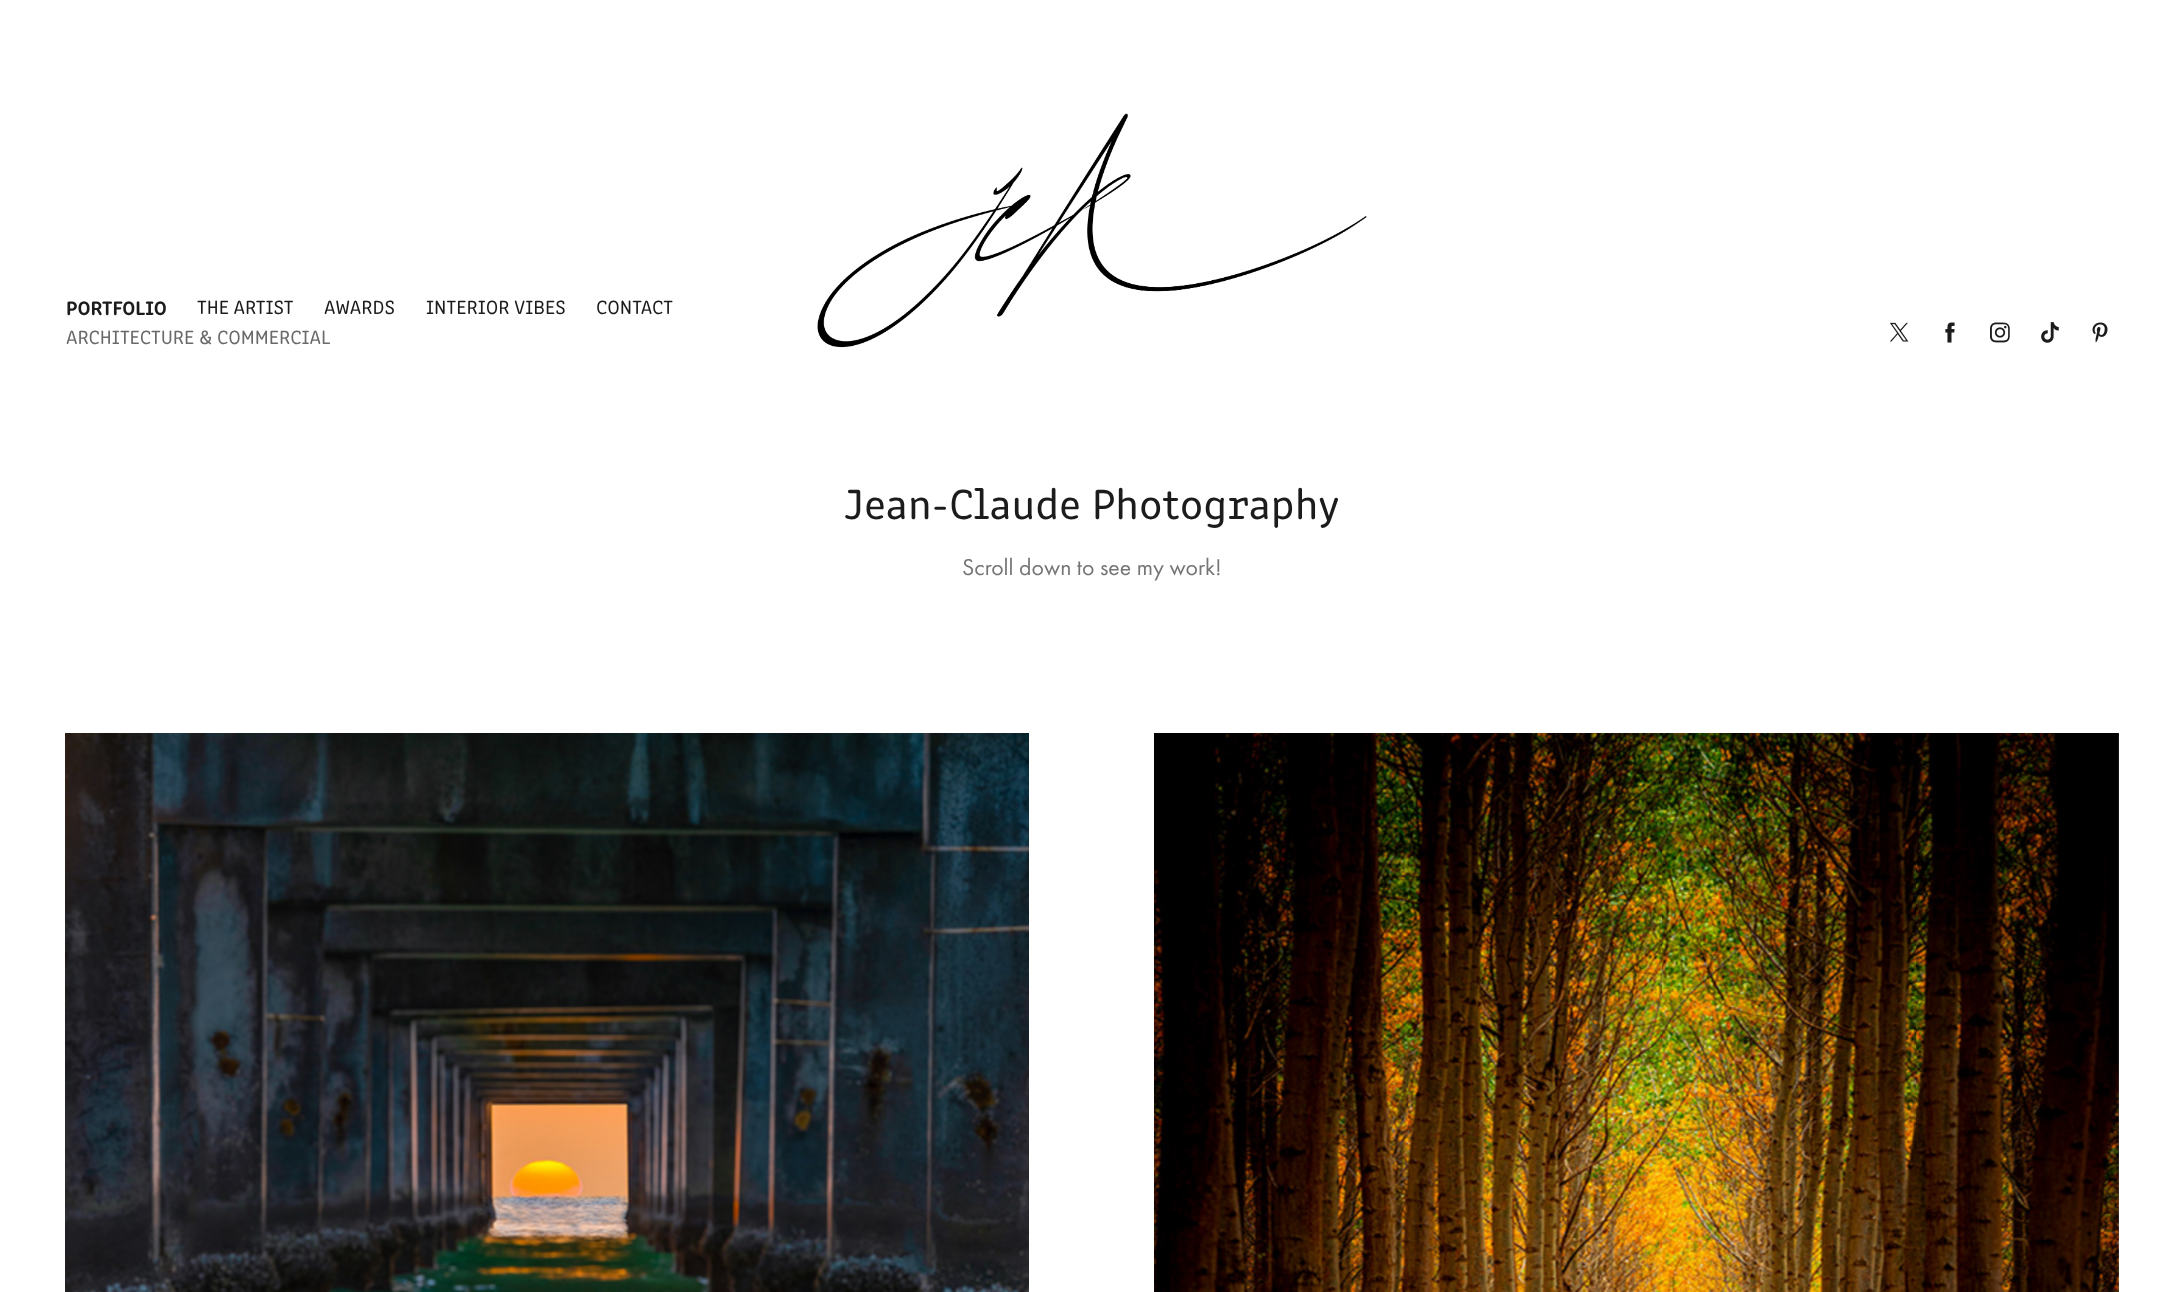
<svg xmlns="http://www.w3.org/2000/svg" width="2183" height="1292">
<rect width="100%" height="100%" fill="#fff"/>
<text x="66" y="315" style="font-family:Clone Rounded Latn;font-size:20px;font-weight:bold;fill:#1c1c1c">PORTFOLIO</text>
<text x="197" y="314" style="font-family:Clone Rounded Latn;font-size:20px;fill:#1c1c1c">THE ARTIST</text>
<text x="324" y="314" style="font-family:Clone Rounded Latn;font-size:20px;fill:#1c1c1c">AWARDS</text>
<text x="426" y="314" style="font-family:Clone Rounded Latn;font-size:20px;fill:#1c1c1c">INTERIOR VIBES</text>
<text x="596" y="314" style="font-family:Clone Rounded Latn;font-size:20px;fill:#1c1c1c">CONTACT</text>
<text x="66" y="344" style="font-family:Clone Rounded Latn;font-size:20px;fill:#6a6a6a">ARCHITECTURE &amp; COMMERCIAL</text>
<image x="817" y="113" width="550" height="235" href="media/1.png"/>
<image x="1889" y="322" width="20" height="20" href="media/2.png"/>
<image x="1945" y="322" width="10" height="21" href="media/3.png"/>
<image x="1990" y="322" width="20" height="21" href="media/4.png"/>
<image x="2041" y="322" width="18" height="21" href="media/5.png"/>
<image x="2092" y="322" width="16" height="21" href="media/6.png"/>
<text x="844" y="519" style="font-family:Clone Rounded Latn;font-size:43.75px;fill:#1c1c1c">Jean-Claude Photography</text>
<text x="962" y="575" style="font-family:Futura PT;font-size:23.75px;fill:#757575">Scroll down to see my work!</text>
<image x="65" y="733" width="964" height="559" href="media/7.png"/>
<image x="1154" y="733" width="965" height="559" href="media/8.png"/>
</svg>
